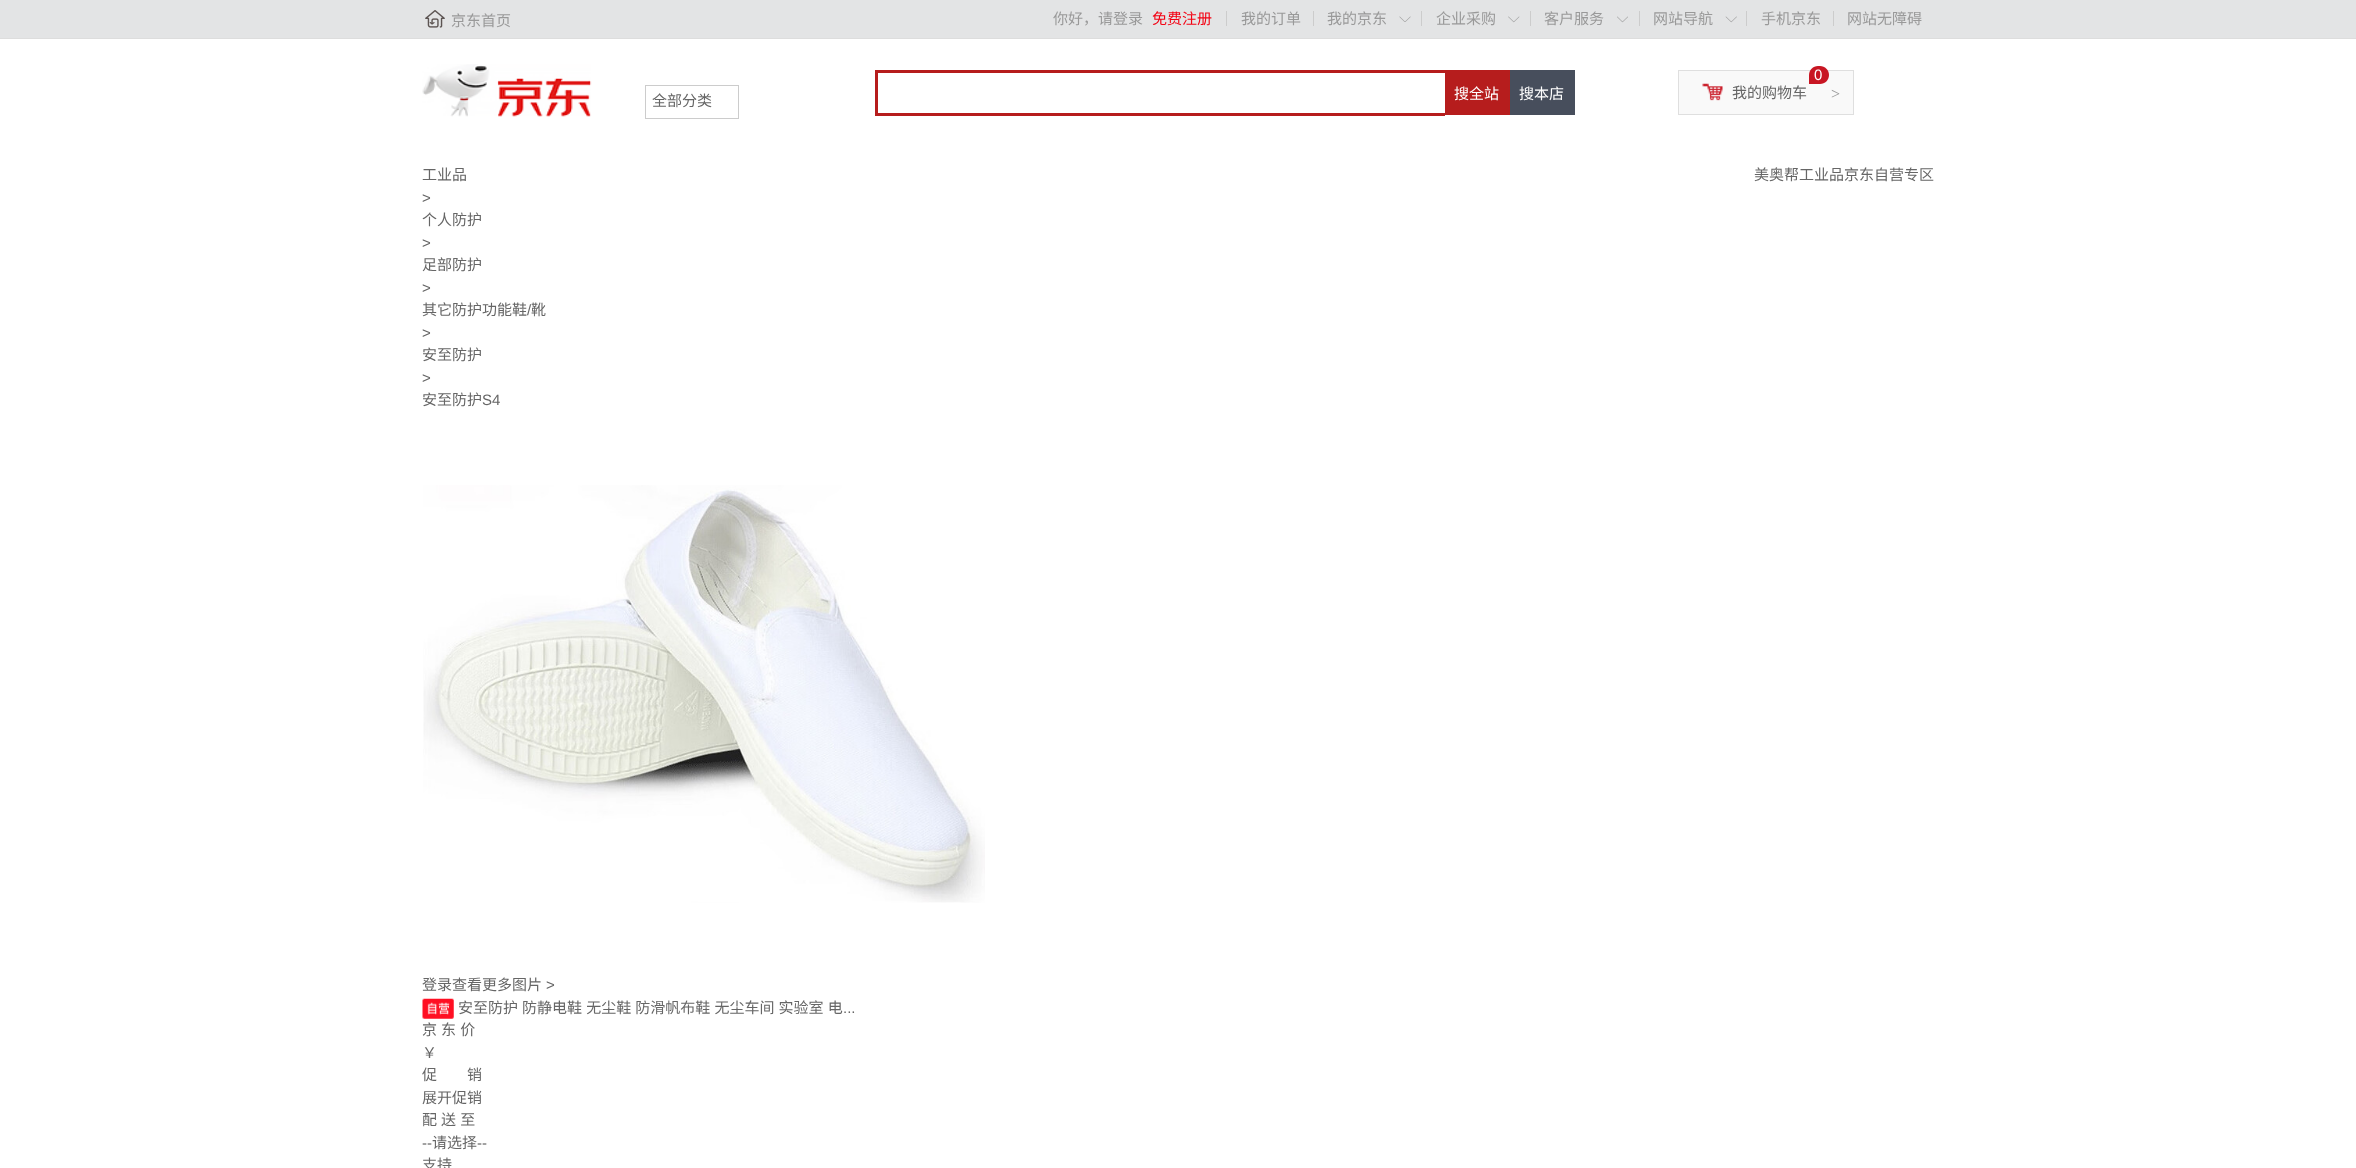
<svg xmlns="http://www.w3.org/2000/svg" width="2356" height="1168">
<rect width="100%" height="100%" fill="#fff"/>
<rect width="2356" height="38" fill="#e3e4e5"/>
<rect y="38" width="2356" height="1" fill="#ddd"/>
<image x="425" y="10" width="20" height="18" href="media/1.png"/>
<text x="451" y="26" style="font-family:Noto Sans CJK SC;font-size:15px;fill:#999">京东首页</text>
<text x="1053" y="24" style="font-family:Noto Sans CJK SC;font-size:15px;fill:#999">你好，请登录</text>
<text x="1152" y="24" style="font-family:Noto Sans CJK SC;font-size:15px;fill:#f30213">免费注册</text>
<rect x="1226" y="11" width="1" height="15" fill="#ccc"/>
<text x="1241" y="24" style="font-family:Noto Sans CJK SC;font-size:15px;fill:#999">我的订单</text>
<rect x="1313" y="11" width="1" height="15" fill="#ccc"/>
<text x="1327" y="24" style="font-family:Noto Sans CJK SC;font-size:15px;fill:#999">我的京东</text>
<image x="1399" y="16" width="12" height="6" href="media/2.png"/>
<rect x="1421" y="11" width="1" height="15" fill="#ccc"/>
<text x="1436" y="24" style="font-family:Noto Sans CJK SC;font-size:15px;fill:#999">企业采购</text>
<image x="1508" y="16" width="12" height="7" href="media/3.png"/>
<rect x="1530" y="11" width="1" height="15" fill="#ccc"/>
<text x="1544" y="24" style="font-family:Noto Sans CJK SC;font-size:15px;fill:#999">客户服务</text>
<image x="1617" y="16" width="11" height="7" href="media/4.png"/>
<rect x="1639" y="11" width="1" height="15" fill="#ccc"/>
<text x="1653" y="24" style="font-family:Noto Sans CJK SC;font-size:15px;fill:#999">网站导航</text>
<image x="1725" y="16" width="12" height="7" href="media/5.png"/>
<rect x="1746" y="11" width="1" height="15" fill="#ccc"/>
<text x="1761" y="24" style="font-family:Noto Sans CJK SC;font-size:15px;fill:#999">手机京东</text>
<rect x="1833" y="11" width="1" height="15" fill="#ccc"/>
<text x="1847" y="24" style="font-family:Noto Sans CJK SC;font-size:15px;fill:#999">网站无障碍</text>
<image x="422" y="64" width="170" height="53" href="media/6.png"/>
<rect x="645.5" y="85.5" width="93" height="33" fill="none" stroke="#ccc"/>
<text x="652" y="106" style="font-family:Noto Sans CJK SC;font-size:15px;fill:#666">全部分类</text>
<rect x="875" y="70" width="570" height="3" fill="#b61d1d"/>
<rect x="875" y="113" width="570" height="3" fill="#b61d1d"/>
<rect x="875" y="70" width="3" height="45" fill="#b61d1d"/>
<rect x="1445" y="70" width="65" height="45" fill="#b61d1d"/>
<text x="1454" y="99" style="font-family:Noto Sans CJK SC;font-size:15px;fill:#fff">搜全站</text>
<rect x="1510" y="70" width="65" height="45" fill="#474e5c"/>
<text x="1519" y="99" style="font-family:Noto Sans CJK SC;font-size:15px;fill:#fff">搜本店</text>
<rect x="1678.5" y="70.5" width="175" height="44" fill="#f9f9f9" stroke="#dfdfdf"/>
<path d="M1818 66h2c5 0 9 4 9 9c0 5-4 9-9 9h-11v-9c0-5 4-9 9-9z" fill="#c81623"/>
<text x="1814" y="80" style="font-family:Liberation Sans;font-size:15px;fill:#fff">0</text>
<image x="1702" y="83" width="21" height="18" href="media/7.png"/>
<text x="1732" y="98" style="font-family:Noto Sans CJK SC;font-size:15px;fill:#666">我的购物车</text>
<text x="1831" y="99" style="font-family:Liberation Serif;font-size:16px;fill:#999">&gt;</text>
<text x="422" y="180" style="font-family:Noto Sans CJK SC;font-size:15px;fill:#666">工业品</text>
<text x="422" y="203" style="font-family:Liberation Sans;font-size:15px;fill:#666">&gt;</text>
<text x="422" y="225" style="font-family:Noto Sans CJK SC;font-size:15px;fill:#666">个人防护</text>
<text x="422" y="248" style="font-family:Liberation Sans;font-size:15px;fill:#666">&gt;</text>
<text x="422" y="270" style="font-family:Noto Sans CJK SC;font-size:15px;fill:#666">足部防护</text>
<text x="422" y="293" style="font-family:Liberation Sans;font-size:15px;fill:#666">&gt;</text>
<text x="422" y="315" style="font-family:Noto Sans CJK SC;font-size:15px;fill:#666">其它防护功能鞋</text>
<text x="527" y="315" style="font-family:Liberation Sans;font-size:15px;fill:#666">/</text>
<text x="531" y="315" style="font-family:Noto Sans CJK SC;font-size:15px;fill:#666">靴</text>
<text x="422" y="338" style="font-family:Liberation Sans;font-size:15px;fill:#666">&gt;</text>
<text x="422" y="360" style="font-family:Noto Sans CJK SC;font-size:15px;fill:#666">安至防护</text>
<text x="422" y="383" style="font-family:Liberation Sans;font-size:15px;fill:#666">&gt;</text>
<text x="422" y="405" style="font-family:Noto Sans CJK SC;font-size:15px;fill:#666">安至防护</text>
<text x="482" y="405" style="font-family:Liberation Sans;font-size:15px;fill:#666">S4</text>
<text x="1754" y="180" style="font-family:Noto Sans CJK SC;font-size:15px;fill:#666">美奥帮工业品京东自营专区</text>
<image x="423" y="485" width="562" height="418" href="media/8.png"/>
<text x="422" y="990" style="font-family:Noto Sans CJK SC;font-size:15px;fill:#666">登录查看更多图片</text>
<text x="546" y="990" style="font-family:Liberation Sans;font-size:15px;fill:#666">&gt;</text>
<image x="422" y="998" width="32" height="21" href="media/9.png"/>
<text x="458" y="1013" word-spacing="0.75" style="font-family:Noto Sans CJK SC;font-size:15px;fill:#666">安至防护 防静电鞋 无尘鞋 防滑帆布鞋 无尘车间 实验室 电</text>
<text x="843" y="1013" style="font-family:Liberation Sans;font-size:15px;fill:#666">...</text>
<text x="422" y="1035" word-spacing="0.75" style="font-family:Noto Sans CJK SC;font-size:15px;fill:#666">京 东 价</text>
<text x="422" y="1058" style="font-family:Noto Sans CJK SC;font-size:15px;fill:#666">￥</text>
<text x="422" y="1080" style="font-family:Noto Sans CJK SC;font-size:15px;fill:#666">促　　销</text>
<text x="422" y="1103" style="font-family:Noto Sans CJK SC;font-size:15px;fill:#666">展开促销</text>
<text x="422" y="1125" word-spacing="0.75" style="font-family:Noto Sans CJK SC;font-size:15px;fill:#666">配 送 至</text>
<text x="422" y="1148" style="font-family:Liberation Sans;font-size:15px;fill:#666">--</text>
<text x="432" y="1148" style="font-family:Noto Sans CJK SC;font-size:15px;fill:#666">请选择</text>
<text x="477" y="1148" style="font-family:Liberation Sans;font-size:15px;fill:#666">--</text>
<text x="422" y="1170" style="font-family:Noto Sans CJK SC;font-size:15px;fill:#666">支持</text>
</svg>
